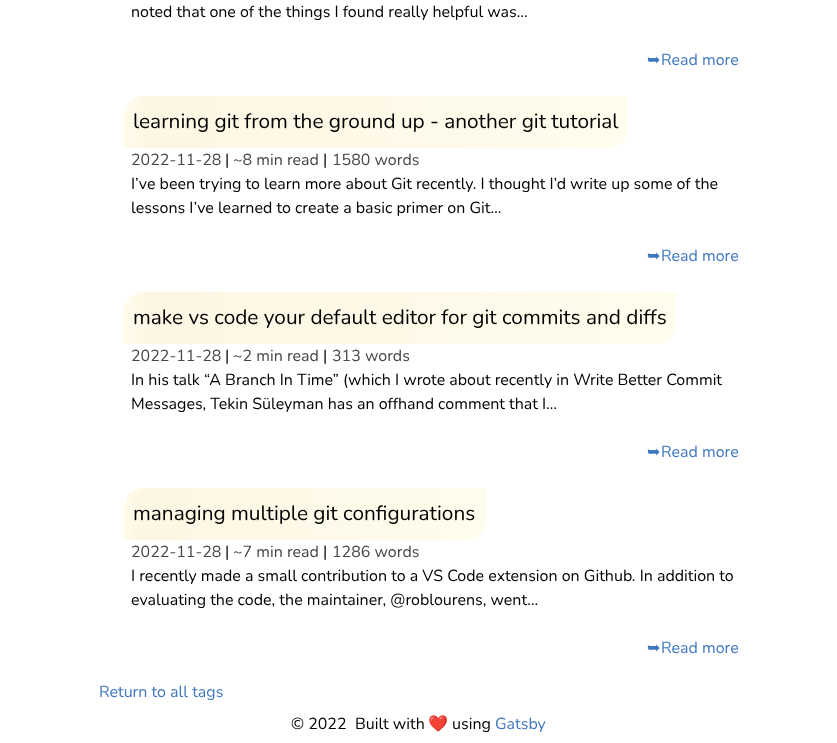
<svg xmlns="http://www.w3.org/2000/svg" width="837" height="743">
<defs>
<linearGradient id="g1" gradientUnits="userSpaceOnUse" x1="123" y1="122" x2="629" y2="122"><stop offset="0" stop-color="#fffcec"/><stop offset="0.05" stop-color="#fdf6e3"/><stop offset="1" stop-color="#fffded"/></linearGradient>
<linearGradient id="g2" gradientUnits="userSpaceOnUse" x1="123" y1="318" x2="677" y2="318"><stop offset="0" stop-color="#fffcec"/><stop offset="0.05" stop-color="#fdf6e3"/><stop offset="1" stop-color="#fffded"/></linearGradient>
<linearGradient id="g3" gradientUnits="userSpaceOnUse" x1="123" y1="514" x2="486" y2="514"><stop offset="0" stop-color="#fffcec"/><stop offset="0.05" stop-color="#fdf6e3"/><stop offset="1" stop-color="#fffded"/></linearGradient>
</defs>
<rect width="100%" height="100%" fill="#fff"/>
<text x="131" y="17" style="font-family:Nunito;font-size:16px;fill:#000">noted that one of the things I found really helpful was…</text>
<text x="647" y="65" style="font-family:DejaVu Sans;font-size:16px;fill:#4078c0">➥</text>
<text x="661" y="65" style="font-family:Nunito;font-size:16px;fill:#4078c0">Read more</text>
<path d="M144 96h485v31c0 11.5-9.5 21-21 21h-485v-31c0-11.5 9.5-21 21-21z" fill="url(#g1)"/>
<text x="133" y="128" style="font-family:Nunito;font-size:20.8px;fill:#000">learning git from the ground up - another git tutorial</text>
<text x="131" y="165" style="font-family:Nunito;font-size:16px;fill:#464646">2022-11-28</text>
<text x="225" y="165" style="font-family:Nunito;font-size:16px;fill:#000">|</text>
<text x="233" y="165" style="font-family:Nunito;font-size:16px;fill:#464646">~8 min read</text>
<text x="323" y="165" style="font-family:Nunito;font-size:16px;fill:#000">|</text>
<text x="332" y="165" style="font-family:Nunito;font-size:16px;fill:#464646">1580 words</text>
<text x="131" y="189" style="font-family:Nunito;font-size:16px;fill:#000">I’ve been trying to learn more about Git recently. I thought I’d write up some of the</text>
<text x="131" y="213" style="font-family:Nunito;font-size:16px;fill:#000">lessons I’ve learned to create a basic primer on Git…</text>
<text x="647" y="261" style="font-family:DejaVu Sans;font-size:16px;fill:#4078c0">➥</text>
<text x="661" y="261" style="font-family:Nunito;font-size:16px;fill:#4078c0">Read more</text>
<path d="M144 292h533v31c0 11.5-9.5 21-21 21h-533v-31c0-11.5 9.5-21 21-21z" fill="url(#g2)"/>
<text x="133" y="324" style="font-family:Nunito;font-size:20.8px;fill:#000">make vs code your default editor for git commits and diffs</text>
<text x="131" y="361" style="font-family:Nunito;font-size:16px;fill:#464646">2022-11-28</text>
<text x="225" y="361" style="font-family:Nunito;font-size:16px;fill:#000">|</text>
<text x="233" y="361" style="font-family:Nunito;font-size:16px;fill:#464646">~2 min read</text>
<text x="323" y="361" style="font-family:Nunito;font-size:16px;fill:#000">|</text>
<text x="332" y="361" style="font-family:Nunito;font-size:16px;fill:#464646">313 words</text>
<text x="131" y="385" style="font-family:Nunito;font-size:16px;fill:#000">In his talk “A Branch In Time” (which I wrote about recently in Write Better Commit</text>
<text x="131" y="409" style="font-family:Nunito;font-size:16px;fill:#000">Messages, Tekin Süleyman has an offhand comment that I…</text>
<text x="647" y="457" style="font-family:DejaVu Sans;font-size:16px;fill:#4078c0">➥</text>
<text x="661" y="457" style="font-family:Nunito;font-size:16px;fill:#4078c0">Read more</text>
<path d="M144 488h342v31c0 11.5-9.5 21-21 21h-342v-31c0-11.5 9.5-21 21-21z" fill="url(#g3)"/>
<text x="133" y="520" style="font-family:Nunito;font-size:20.8px;fill:#000">managing multiple git configurations</text>
<text x="131" y="557" style="font-family:Nunito;font-size:16px;fill:#464646">2022-11-28</text>
<text x="225" y="557" style="font-family:Nunito;font-size:16px;fill:#000">|</text>
<text x="233" y="557" style="font-family:Nunito;font-size:16px;fill:#464646">~7 min read</text>
<text x="323" y="557" style="font-family:Nunito;font-size:16px;fill:#000">|</text>
<text x="332" y="557" style="font-family:Nunito;font-size:16px;fill:#464646">1286 words</text>
<text x="131" y="581" style="font-family:Nunito;font-size:16px;fill:#000">I recently made a small contribution to a VS Code extension on Github. In addition to</text>
<text x="131" y="605" style="font-family:Nunito;font-size:16px;fill:#000">evaluating the code, the maintainer, @roblourens, went…</text>
<text x="647" y="653" style="font-family:DejaVu Sans;font-size:16px;fill:#4078c0">➥</text>
<text x="661" y="653" style="font-family:Nunito;font-size:16px;fill:#4078c0">Read more</text>
<text x="99" y="697" style="font-family:Nunito;font-size:16px;fill:#4078c0">Return to all tags</text>
<text x="291" y="729" style="font-family:Nunito;font-size:16px;fill:#000">© 2022</text>
<text x="355" y="729" style="font-family:Nunito;font-size:16px;fill:#000">Built with</text>
<text x="428" y="729" style="font-family:Noto Color Emoji;font-size:16px;fill:#000">❤️</text>
<text x="452" y="729" style="font-family:Nunito;font-size:16px;fill:#000">using</text>
<text x="495" y="729" style="font-family:Nunito;font-size:16px;fill:#4078c0">Gatsby</text>
</svg>
